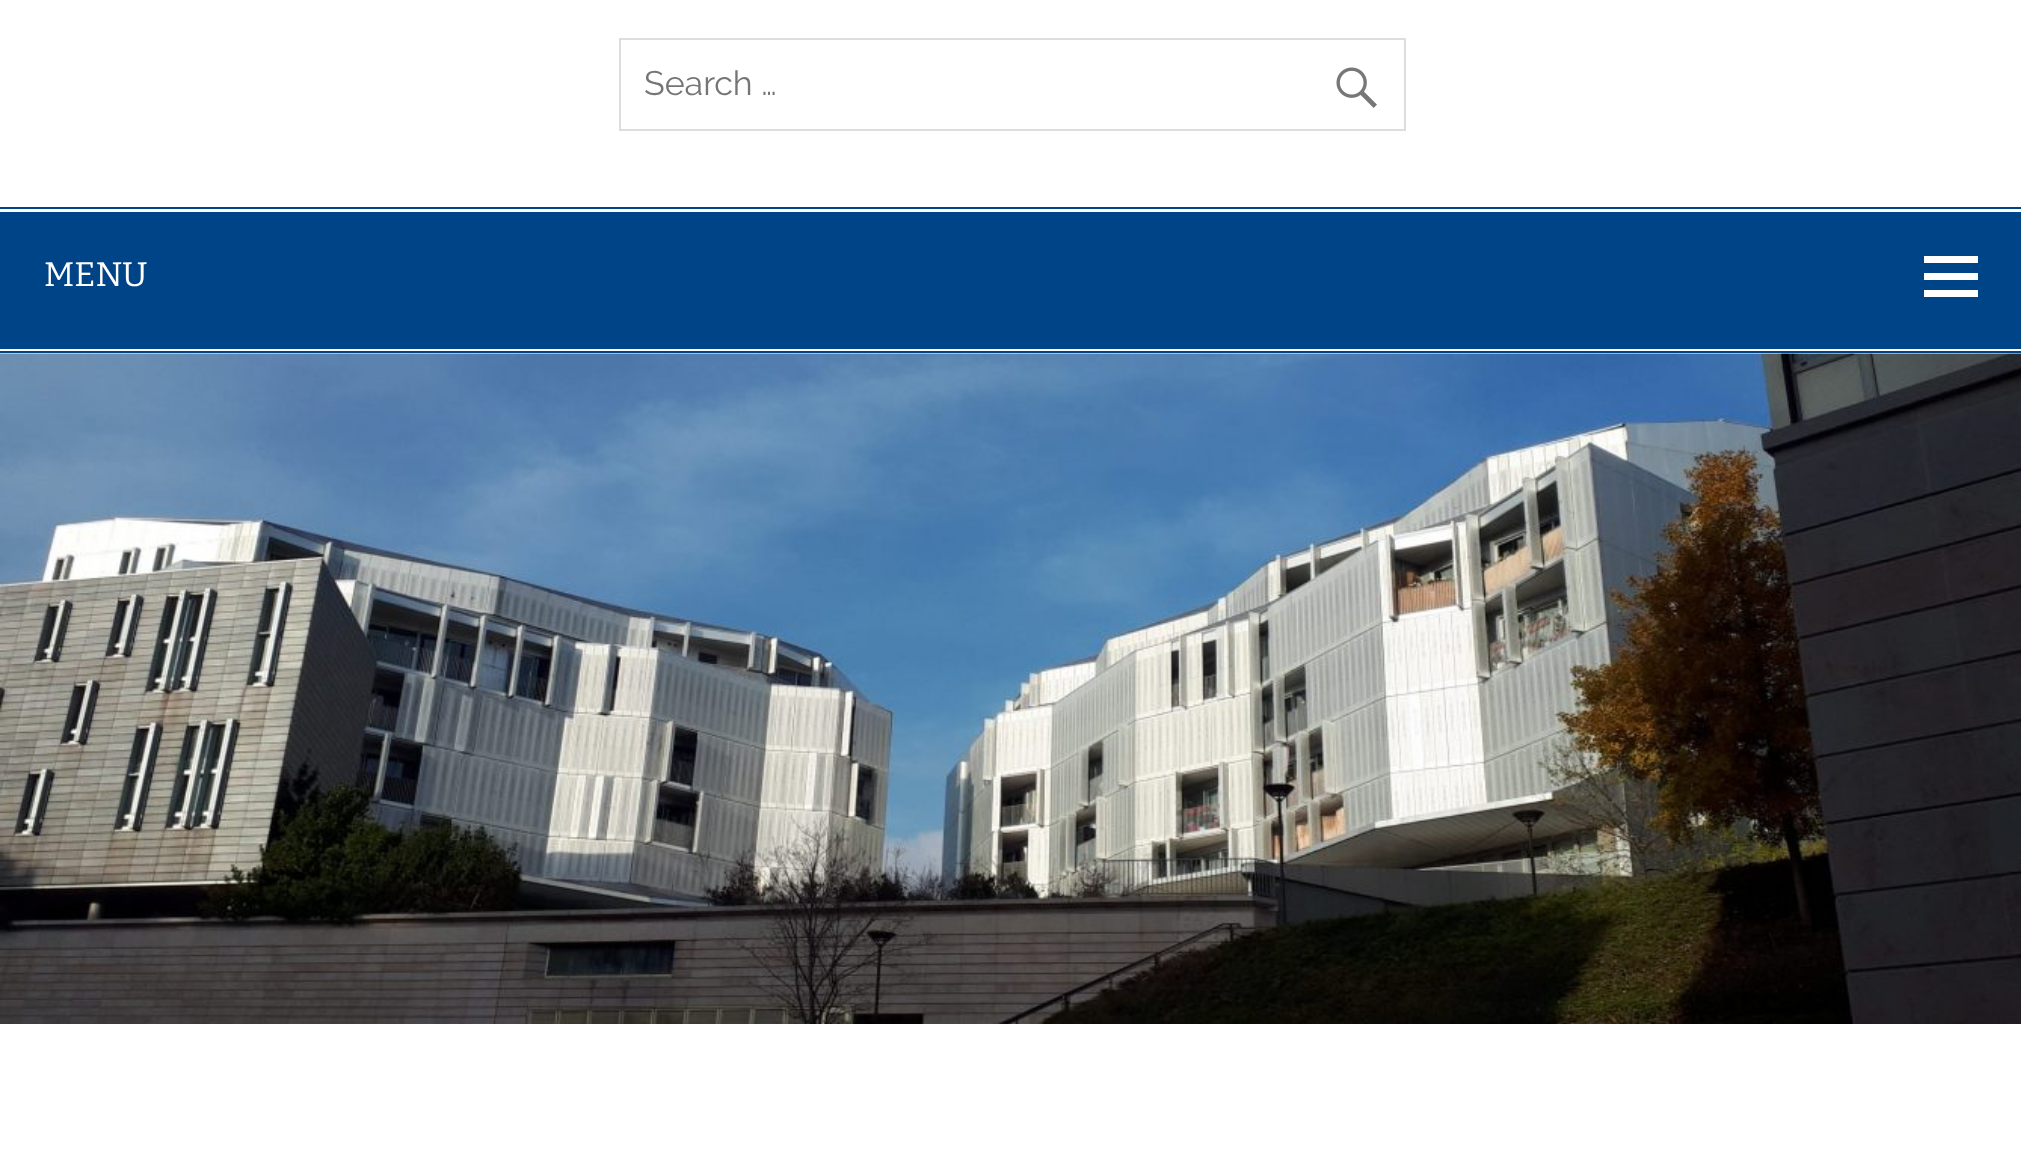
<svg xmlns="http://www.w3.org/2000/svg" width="2021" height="1176">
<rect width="100%" height="100%" fill="#fff"/>
<rect x="620" y="39" width="785" height="91" fill="none" stroke="#ddd" stroke-width="2"/>
<text x="644" y="95" style="font-family:Raleway;font-size:34px;fill:#757575">Search …</text>
<image x="1336" y="67" width="41" height="41" href="media/1.png"/>
<rect y="207" width="2021" height="2" fill="#048"/>
<rect y="351" width="2021" height="2" fill="#048"/>
<rect y="212" width="2021" height="137" fill="#048"/>
<text x="44" y="286" style="font-family:Bitter;font-size:34px;fill:#fff">MENU</text>
<path d="M1924 297v-7h54v7zm0-41h54v7h-54zm0 24v-7h54v7z" fill="#fff"/>
<image x="0" y="353" width="2021" height="671" href="media/2.png"/>
</svg>
